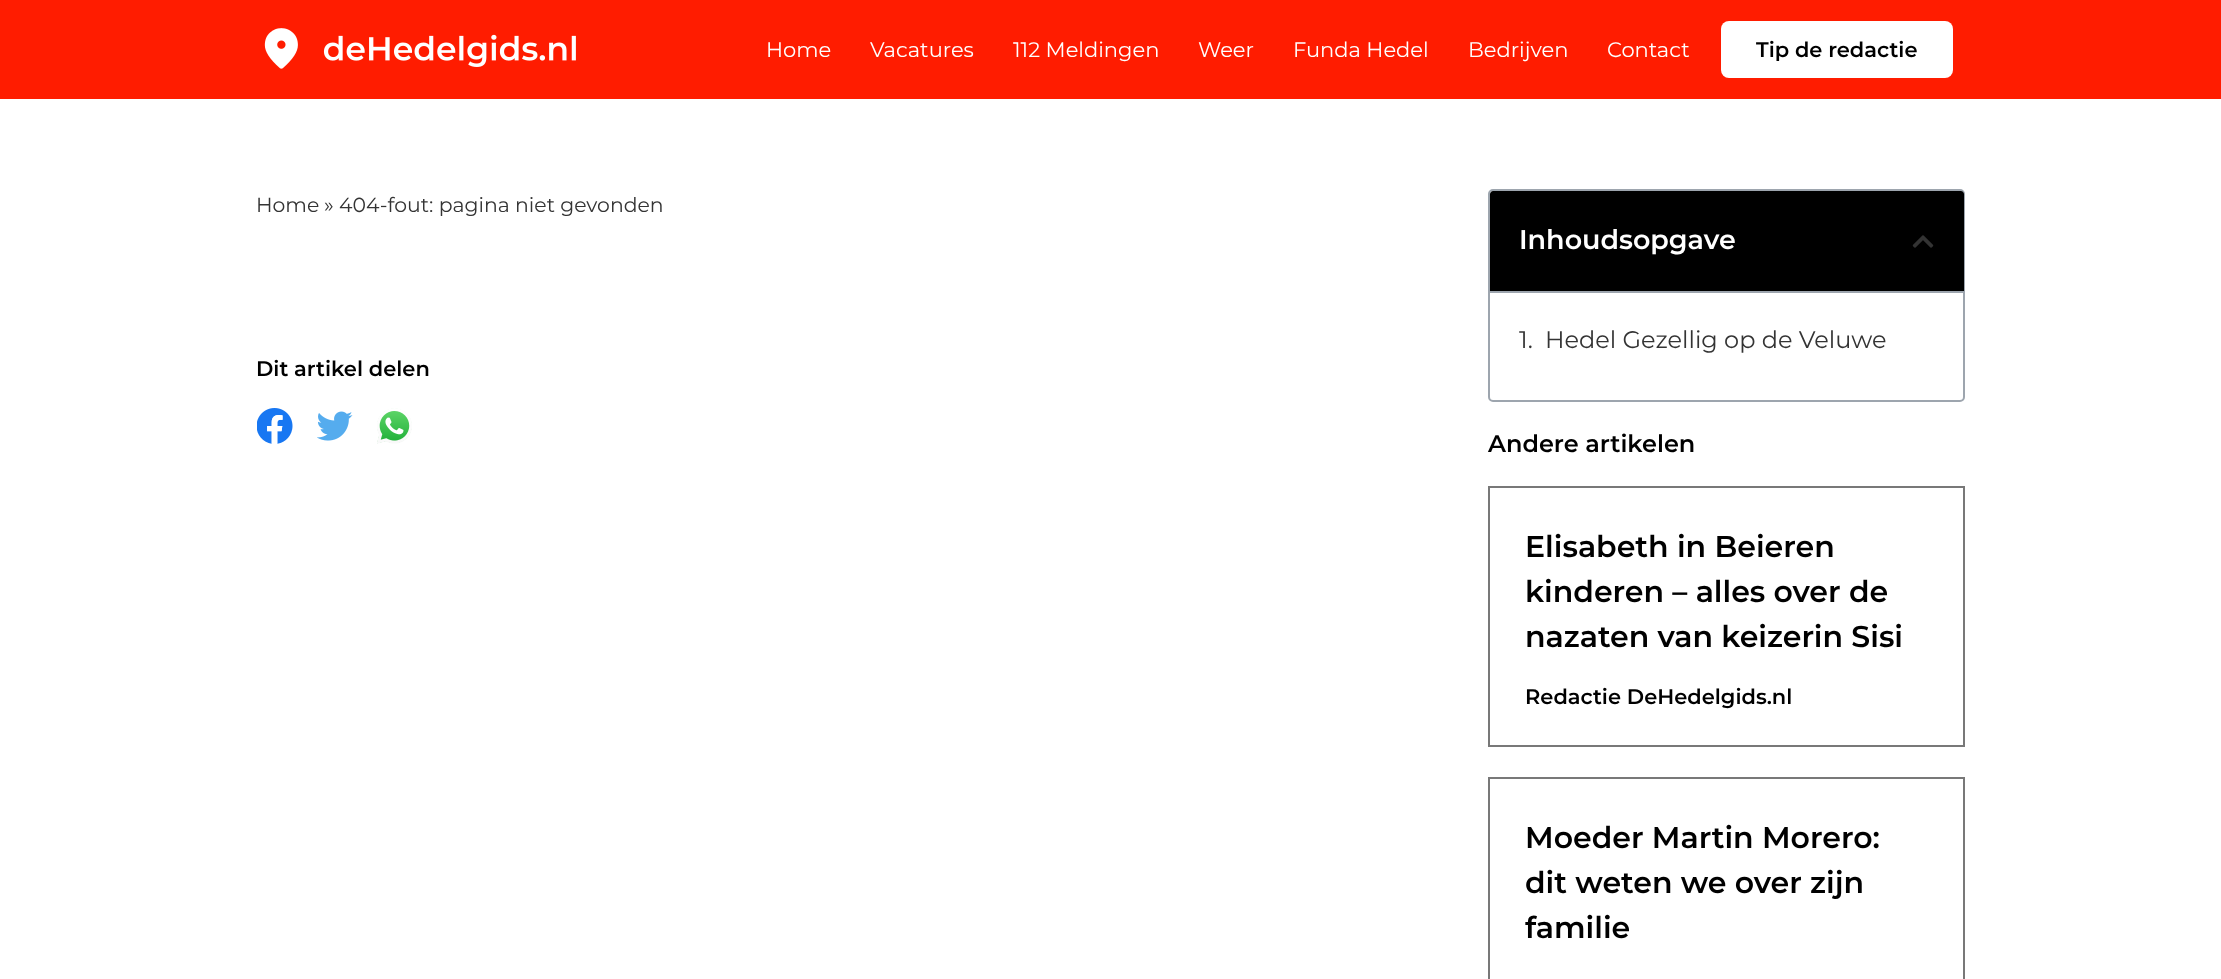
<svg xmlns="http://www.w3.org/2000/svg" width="2221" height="979">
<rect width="100%" height="100%" fill="#fff"/>
<rect width="2221" height="99" fill="#ff1c00"/>
<image x="264" y="28" width="312" height="41" href="media/1.png"/>
<text x="766" y="57" style="font-family:Montserrat;font-size:21px;fill:#fff">Home</text>
<text x="870" y="57" style="font-family:Montserrat;font-size:21px;fill:#fff">Vacatures</text>
<text x="1013" y="57" style="font-family:Montserrat;font-size:21px;fill:#fff">112 Meldingen</text>
<text x="1198" y="57" style="font-family:Montserrat;font-size:21px;fill:#fff">Weer</text>
<text x="1293" y="57" style="font-family:Montserrat;font-size:21px;fill:#fff">Funda Hedel</text>
<text x="1468" y="57" style="font-family:Montserrat;font-size:21px;fill:#fff">Bedrijven</text>
<text x="1607" y="57" style="font-family:Montserrat;font-size:21px;fill:#fff">Contact</text>
<rect x="1721" y="21" width="232" height="57" rx="8" fill="#fff"/>
<text x="1756" y="57" style="font-family:Montserrat;font-size:21px;font-weight:600;fill:#000">Tip de redactie</text>
<text x="256" y="212" style="font-family:Montserrat;font-size:20.4px;fill:#343434">Home</text>
<text x="324" y="212" style="font-family:Montserrat;font-size:20.4px;fill:#343434">» 404-fout: pagina niet gevonden</text>
<text x="256" y="376" style="font-family:Montserrat;font-size:21px;font-weight:600;fill:#000">Dit artikel delen</text>
<image x="257" y="408" width="36" height="36" href="media/2.png"/>
<image x="317" y="411" width="36" height="30" href="media/3.png"/>
<image x="377" y="408" width="35" height="36" href="media/4.png"/>
<rect x="1489" y="190" width="475" height="211" rx="4" fill="none" stroke="#9da5ae" stroke-width="2"/>
<path d="M1493 191h468c1.5 0 3 1.5 3 3v99h-474v-99c0-1.5 1.5-3 3-3z" fill="#000"/>
<rect x="1490" y="291" width="474" height="2" fill="#9da5ae"/>
<text x="1519" y="249" style="font-family:Montserrat;font-size:27px;font-weight:600;fill:#fff">Inhoudsopgave</text>
<image x="1912" y="235" width="22" height="13" href="media/5.png"/>
<text x="1519" y="348" style="font-family:Montserrat;font-size:24px;fill:#343434">1.</text>
<text x="1545" y="348" style="font-family:Montserrat;font-size:24px;fill:#343434">Hedel Gezellig op de Veluwe</text>
<text x="1488" y="452" style="font-family:Montserrat;font-size:24px;font-weight:600;fill:#000">Andere artikelen</text>
<rect x="1489" y="487" width="475" height="259" fill="none" stroke="#787878" stroke-width="2"/>
<text x="1525" y="557" style="font-family:Montserrat;font-size:30px;font-weight:600;fill:#000">Elisabeth in Beieren</text>
<text x="1525" y="602" style="font-family:Montserrat;font-size:30px;font-weight:600;fill:#000">kinderen – alles over de</text>
<text x="1525" y="647" style="font-family:Montserrat;font-size:30px;font-weight:600;fill:#000">nazaten van keizerin Sisi</text>
<text x="1525" y="704" style="font-family:Montserrat;font-size:21px;font-weight:600;fill:#000">Redactie DeHedelgids.nl</text>
<rect x="1489" y="778" width="475" height="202" fill="none" stroke="#787878" stroke-width="2"/>
<text x="1525" y="848" style="font-family:Montserrat;font-size:30px;font-weight:600;fill:#000">Moeder Martin Morero:</text>
<text x="1525" y="893" style="font-family:Montserrat;font-size:30px;font-weight:600;fill:#000">dit weten we over zijn</text>
<text x="1525" y="938" style="font-family:Montserrat;font-size:30px;font-weight:600;fill:#000">familie</text>
</svg>
